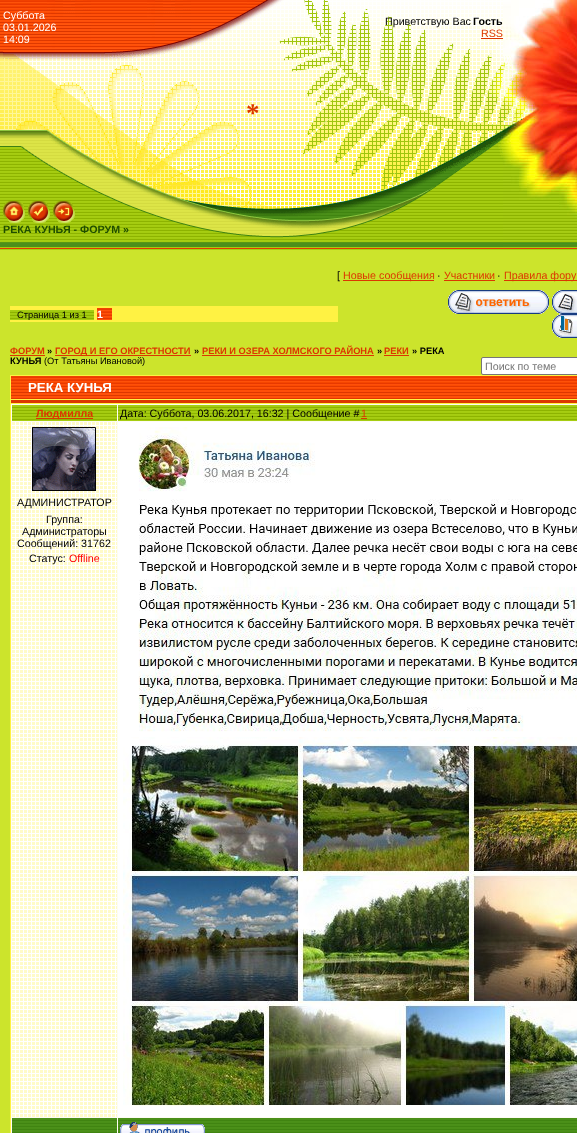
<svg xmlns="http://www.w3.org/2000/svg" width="577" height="1133">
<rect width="100%" height="100%" fill="#cce42c"/>
<image x="0" y="0" width="3" height="250" href="media/1.png"/>
<image x="3" y="0" width="500" height="53" href="media/2.png"/>
<text x="3" y="19" style="font-family:Liberation Sans;font-size:10.7px;fill:#fff">Суббота</text>
<text x="3" y="31" style="font-family:Liberation Sans;font-size:10.7px;fill:#fff">03.01.2026</text>
<text x="3" y="43" style="font-family:Liberation Sans;font-size:10.7px;fill:#fff">14:09</text>
<text x="385" y="25" style="font-family:Liberation Sans;font-size:10.7px;fill:#000">Приветствую Вас</text>
<text x="473" y="25" style="font-family:Liberation Sans;font-size:10.7px;font-weight:bold;fill:#000">Гость</text>
<text x="481" y="37" style="font-family:Liberation Sans;font-size:10.7px;fill:#dc3700">RSS</text>
<rect x="481" y="38" width="22" height="1" fill="#dc3700"/>
<image x="503" y="0" width="74" height="250" href="media/3.png"/>
<image x="3" y="53" width="500" height="120" href="media/4.png"/>
<text x="246" y="122" style="font-family:Liberation Serif;font-size:27px;font-weight:bold;fill:#dc3700">*</text>
<image x="3" y="173" width="500" height="77" href="media/5.png"/>
<image x="3" y="201" width="22" height="22" href="media/6.png"/>
<image x="28" y="201" width="22" height="22" href="media/7.png"/>
<image x="53" y="201" width="22" height="22" href="media/8.png"/>
<text x="3" y="233" style="font-family:Liberation Sans;font-size:10.7px;font-weight:bold;fill:#1f4d00">РЕКА КУНЬЯ - ФОРУМ »</text>
<text x="337" y="279" style="font-family:Liberation Sans;font-size:10.7px;fill:#000">[</text>
<rect x="343" y="280" width="91" height="1" fill="#dc3700"/>
<text x="343" y="279" style="font-family:Liberation Sans;font-size:10.7px;fill:#dc3700">Новые сообщения</text>
<text x="437" y="279" style="font-family:Liberation Sans;font-size:10.7px;fill:#000">·</text>
<text x="444" y="279" style="font-family:Liberation Sans;font-size:10.7px;fill:#dc3700">Участники</text>
<rect x="444" y="280" width="51" height="1" fill="#dc3700"/>
<text x="497" y="279" style="font-family:Liberation Sans;font-size:10.7px;fill:#000">·</text>
<rect x="504" y="280" width="73" height="1" fill="#dc3700"/>
<text x="504" y="279" style="font-family:Liberation Sans;font-size:10.7px;fill:#dc3700">Правила форум</text>
<rect x="10" y="306" width="328" height="16" fill="#fff243"/>
<image x="10" y="310" width="84" height="10" href="media/9.png"/>
<text x="17" y="318" style="font-family:Liberation Sans;font-size:9.3px;fill:#000">Страница 1 из 1</text>
<image x="97" y="308" width="15" height="12" href="media/10.png"/>
<text x="97" y="318" style="font-family:Liberation Sans;font-size:10.7px;font-weight:bold;fill:#fff">1</text>
<image x="448" y="290" width="101" height="24" href="media/11.png"/>
<image x="552" y="290" width="25" height="24" href="media/12.png"/>
<image x="552" y="314" width="25" height="24" href="media/13.png"/>
<text x="10" y="354" style="font-family:Liberation Sans;font-size:9.3px;font-weight:bold;fill:#dc3700">ФОРУМ</text>
<rect x="10" y="355" width="35" height="1" fill="#dc3700"/>
<text x="47" y="354" style="font-family:Liberation Sans;font-size:9.3px;font-weight:bold;fill:#000">»</text>
<rect x="55" y="355" width="136" height="1" fill="#dc3700"/>
<text x="55" y="354" style="font-family:Liberation Sans;font-size:9.3px;font-weight:bold;fill:#dc3700">ГОРОД И ЕГО ОКРЕСТНОСТИ</text>
<text x="194" y="354" style="font-family:Liberation Sans;font-size:9.3px;font-weight:bold;fill:#000">»</text>
<text x="202" y="354" style="font-family:Liberation Sans;font-size:9.3px;font-weight:bold;fill:#dc3700">РЕКИ И ОЗЕРА ХОЛМСКОГО РАЙОНА</text>
<rect x="202" y="355" width="172" height="1" fill="#dc3700"/>
<text x="377" y="354" style="font-family:Liberation Sans;font-size:9.3px;font-weight:bold;fill:#000">»</text>
<text x="384" y="354" style="font-family:Liberation Sans;font-size:9.3px;font-weight:bold;fill:#dc3700">РЕКИ</text>
<rect x="384" y="355" width="25" height="1" fill="#dc3700"/>
<text x="412" y="354" style="font-family:Liberation Sans;font-size:9.3px;font-weight:bold;fill:#000">» РЕКА</text>
<text x="10" y="364" style="font-family:Liberation Sans;font-size:9.3px;font-weight:bold;fill:#000">КУНЬЯ</text>
<text x="44" y="364" style="font-family:Liberation Sans;font-size:9.3px;fill:#000">(От Татьяны Ивановой)</text>
<rect x="481.5" y="357.5" width="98" height="17" rx="1.5" fill="#fff" stroke="#767676"/>
<text x="485" y="370" style="font-family:Liberation Sans;font-size:10.7px;fill:#757575">Поиск по теме</text>
<rect x="10" y="375" width="567" height="758" fill="#fff243"/>
<image x="11" y="376" width="566" height="23" href="media/14.png"/>
<text x="28" y="392" style="font-family:Liberation Sans;font-size:13.25px;font-weight:bold;fill:#fff">РЕКА КУНЬЯ</text>
<rect x="11" y="400" width="566" height="3" fill="#dc3700"/>
<rect x="11" y="404" width="566" height="729" fill="#fdfcf4"/>
<image x="12" y="405" width="105" height="16" href="media/15.png"/>
<rect x="36" y="418" width="57" height="1" fill="#dc3700"/>
<text x="36" y="417" style="font-family:Liberation Sans;font-size:10.7px;font-weight:bold;fill:#dc3700">Людмилла</text>
<image x="118" y="405" width="459" height="16" href="media/16.png"/>
<text x="120" y="417" style="font-family:Liberation Sans;font-size:10.7px;fill:#000">Дата: Суббота, 03.06.2017, 16:32 | Сообщение #</text>
<text x="361" y="417" style="font-family:Liberation Sans;font-size:10.7px;fill:#dc3700">1</text>
<rect x="361" y="418" width="6" height="1" fill="#dc3700"/>
<image x="12" y="422" width="105" height="695" href="media/17.png"/>
<image x="32" y="427" width="64" height="64" href="media/18.png"/>
<text x="17" y="506" style="font-family:Liberation Sans;font-size:10.7px;fill:#000">АДМИНИСТРАТОР</text>
<text x="46" y="523" style="font-family:Liberation Sans;font-size:10.7px;fill:#000">Группа:</text>
<text x="22" y="535" style="font-family:Liberation Sans;font-size:10.7px;fill:#000">Администраторы</text>
<text x="17" y="547" style="font-family:Liberation Sans;font-size:10.7px;fill:#000">Сообщений: 31762</text>
<text x="29" y="562" style="font-family:Liberation Sans;font-size:10.7px;fill:#000">Статус:</text>
<text x="69" y="562" style="font-family:Liberation Sans;font-size:10.7px;fill:#f00">Offline</text>
<rect x="118" y="422" width="459" height="695" fill="#fff"/>
<image x="138" y="427" width="439" height="305" href="media/19.png"/>
<image x="123" y="737" width="454" height="369" href="media/20.png"/>
<rect x="12" y="1118" width="105" height="2" fill="#4b9019"/>
<image x="12" y="1120" width="105" height="13" href="media/21.png"/>
<rect x="118" y="1118" width="459" height="2" fill="#4b9019"/>
<image x="118" y="1120" width="459" height="13" href="media/22.png"/>
<image x="120" y="1122" width="85" height="11" href="media/23.png"/>
</svg>
